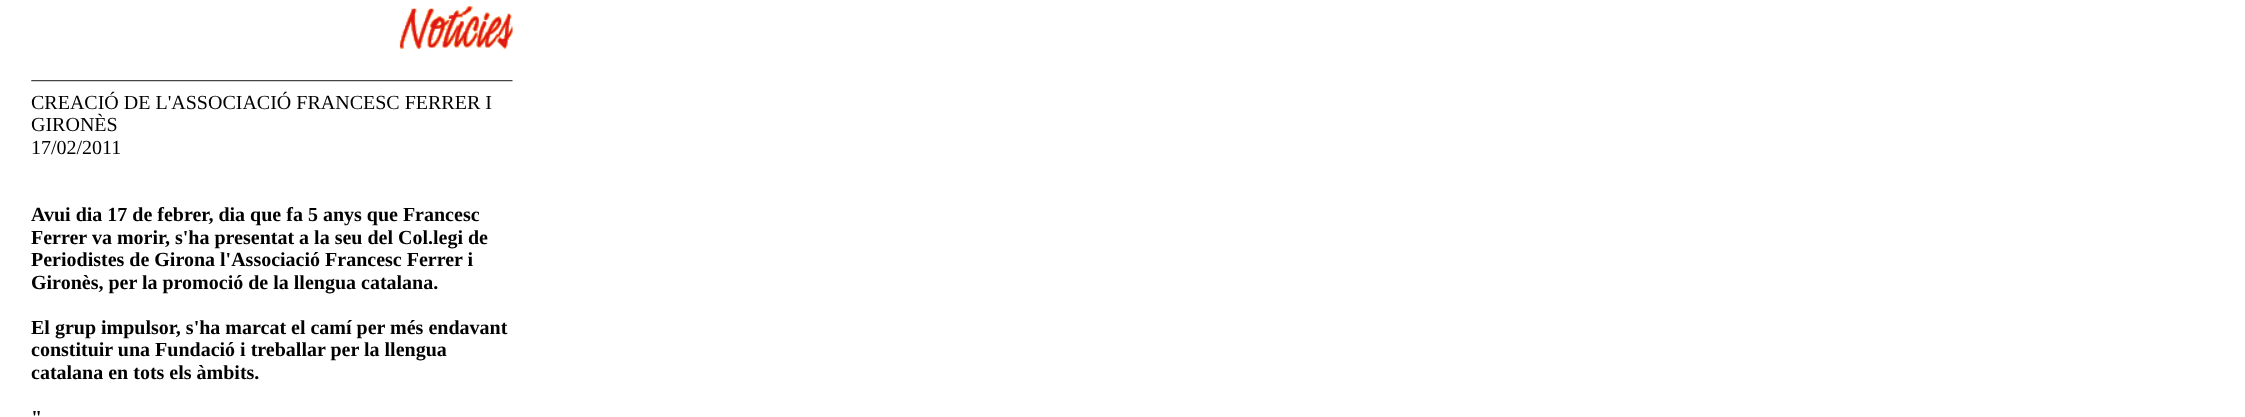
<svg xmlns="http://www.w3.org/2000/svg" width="2245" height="417">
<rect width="100%" height="100%" fill="#fff"/>
<image x="399" y="6" width="114" height="43" href="media/1.png"/>
<image x="31" y="80" width="482" height="2" href="media/2.png"/>
<text x="31" y="109" style="font-family:Liberation Serif;font-size:20px;fill:#000">CREACIÓ DE L'ASSOCIACIÓ FRANCESC FERRER I</text>
<text x="31" y="131" style="font-family:Liberation Serif;font-size:20px;fill:#000">GIRONÈS</text>
<text x="31" y="154" style="font-family:Liberation Serif;font-size:20px;fill:#000">17/02/2011</text>
<text x="31" y="221" style="font-family:Liberation Serif;font-size:20px;font-weight:bold;fill:#000">Avui dia 17 de febrer, dia que fa 5 anys que Francesc</text>
<text x="31" y="244" style="font-family:Liberation Serif;font-size:20px;font-weight:bold;fill:#000">Ferrer va morir, s'ha presentat a la seu del Col.legi de</text>
<text x="31" y="266" style="font-family:Liberation Serif;font-size:20px;font-weight:bold;fill:#000">Periodistes de Girona l'Associació Francesc Ferrer i</text>
<text x="31" y="289" style="font-family:Liberation Serif;font-size:20px;font-weight:bold;fill:#000">Gironès, per la promoció de la llengua catalana.</text>
<text x="31" y="334" style="font-family:Liberation Serif;font-size:20px;font-weight:bold;fill:#000">El grup impulsor, s'ha marcat el camí per més endavant</text>
<text x="31" y="356" style="font-family:Liberation Serif;font-size:20px;font-weight:bold;fill:#000">constituir una Fundació i treballar per la llengua</text>
<text x="31" y="379" style="font-family:Liberation Serif;font-size:20px;font-weight:bold;fill:#000">catalana en tots els àmbits.</text>
<text x="31" y="424" style="font-family:Liberation Serif;font-size:20px;font-weight:bold;fill:#000">"</text>
</svg>
